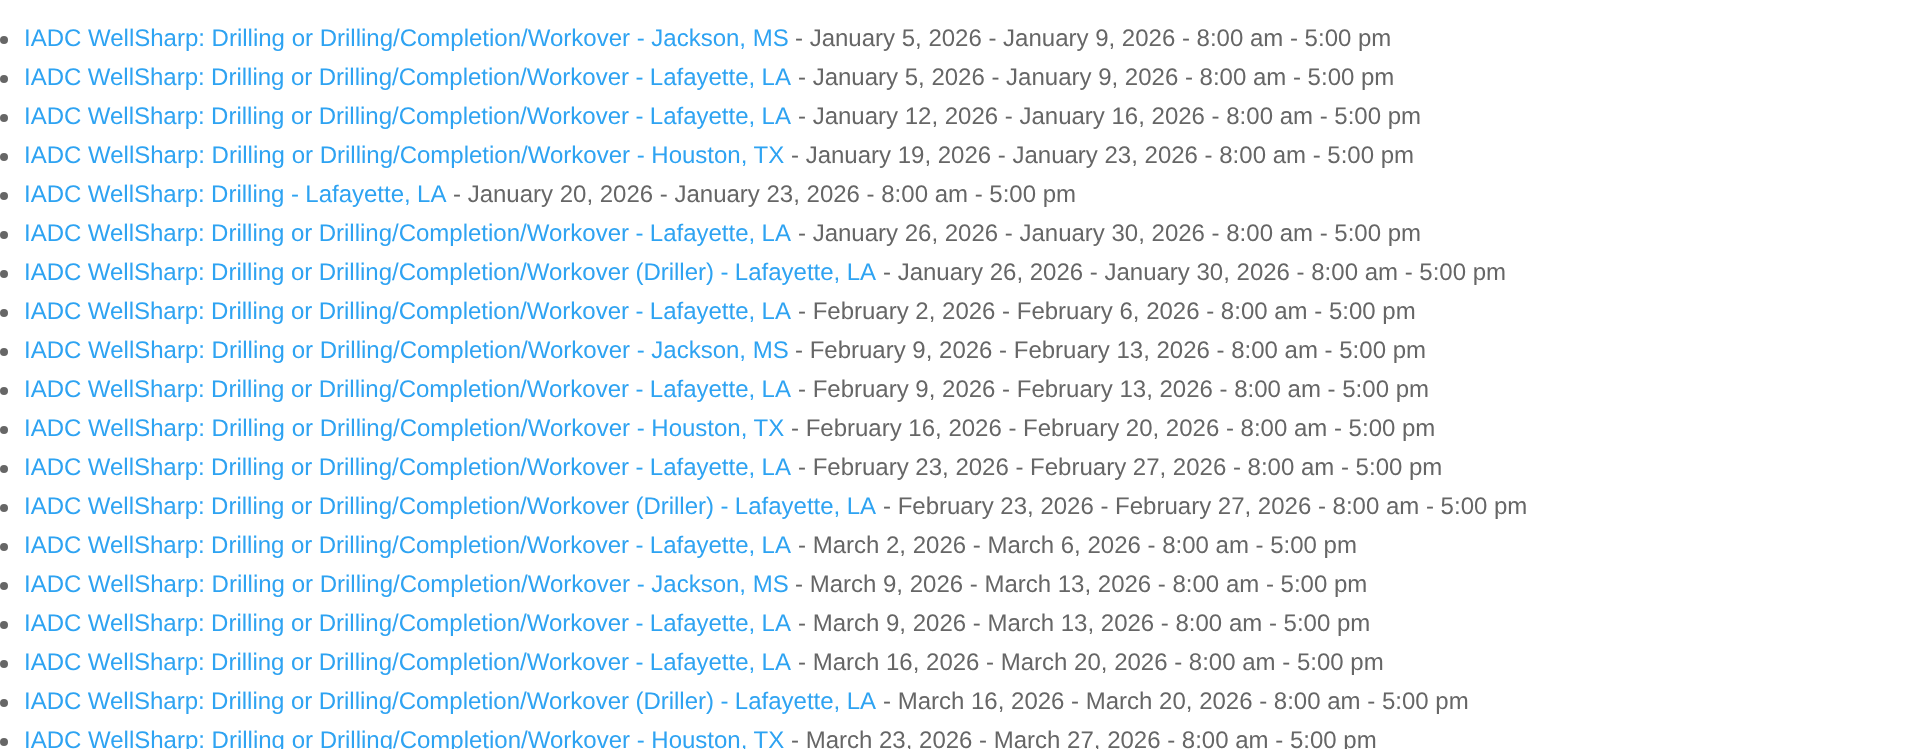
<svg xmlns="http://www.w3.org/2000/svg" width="1906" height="749">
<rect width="100%" height="100%" fill="#fff"/>
<circle cx="4" cy="40" r="4" fill="#666"/>
<text x="24" y="46" style="font-family:Liberation Sans;font-size:24px;fill:#2ea3f2">IADC WellSharp: Drilling or Drilling/Completion/Workover - Jackson, MS</text>
<text x="795" y="46" style="font-family:Liberation Sans;font-size:24px;fill:#666">- January 5, 2026 - January 9, 2026 - 8:00 am - 5:00 pm</text>
<circle cx="4" cy="79" r="4" fill="#666"/>
<text x="24" y="85" word-spacing="-0.25" style="font-family:Liberation Sans;font-size:24px;fill:#2ea3f2">IADC WellSharp: Drilling or Drilling/Completion/Workover - Lafayette, LA</text>
<text x="798" y="85" style="font-family:Liberation Sans;font-size:24px;fill:#666">- January 5, 2026 - January 9, 2026 - 8:00 am - 5:00 pm</text>
<circle cx="4" cy="118" r="4" fill="#666"/>
<text x="24" y="124" word-spacing="-0.25" style="font-family:Liberation Sans;font-size:24px;fill:#2ea3f2">IADC WellSharp: Drilling or Drilling/Completion/Workover - Lafayette, LA</text>
<text x="798" y="124" style="font-family:Liberation Sans;font-size:24px;fill:#666">- January 12, 2026 - January 16, 2026 - 8:00 am - 5:00 pm</text>
<circle cx="4" cy="157" r="4" fill="#666"/>
<text x="24" y="163" style="font-family:Liberation Sans;font-size:24px;fill:#2ea3f2">IADC WellSharp: Drilling or Drilling/Completion/Workover - Houston, TX</text>
<text x="791" y="163" style="font-family:Liberation Sans;font-size:24px;fill:#666">- January 19, 2026 - January 23, 2026 - 8:00 am - 5:00 pm</text>
<circle cx="4" cy="196" r="4" fill="#666"/>
<text x="24" y="202" word-spacing="-0.25" style="font-family:Liberation Sans;font-size:24px;fill:#2ea3f2">IADC WellSharp: Drilling - Lafayette, LA</text>
<text x="453" y="202" style="font-family:Liberation Sans;font-size:24px;fill:#666">- January 20, 2026 - January 23, 2026 - 8:00 am - 5:00 pm</text>
<circle cx="4" cy="235" r="4" fill="#666"/>
<text x="24" y="241" word-spacing="-0.25" style="font-family:Liberation Sans;font-size:24px;fill:#2ea3f2">IADC WellSharp: Drilling or Drilling/Completion/Workover - Lafayette, LA</text>
<text x="798" y="241" style="font-family:Liberation Sans;font-size:24px;fill:#666">- January 26, 2026 - January 30, 2026 - 8:00 am - 5:00 pm</text>
<circle cx="4" cy="274" r="4" fill="#666"/>
<text x="24" y="280" word-spacing="-0.25" style="font-family:Liberation Sans;font-size:24px;fill:#2ea3f2">IADC WellSharp: Drilling or Drilling/Completion/Workover (Driller) - Lafayette, LA</text>
<text x="883" y="280" style="font-family:Liberation Sans;font-size:24px;fill:#666">- January 26, 2026 - January 30, 2026 - 8:00 am - 5:00 pm</text>
<circle cx="4" cy="313" r="4" fill="#666"/>
<text x="24" y="319" word-spacing="-0.25" style="font-family:Liberation Sans;font-size:24px;fill:#2ea3f2">IADC WellSharp: Drilling or Drilling/Completion/Workover - Lafayette, LA</text>
<text x="798" y="319" style="font-family:Liberation Sans;font-size:24px;fill:#666">- February 2, 2026 - February 6, 2026 - 8:00 am - 5:00 pm</text>
<circle cx="4" cy="352" r="4" fill="#666"/>
<text x="24" y="358" style="font-family:Liberation Sans;font-size:24px;fill:#2ea3f2">IADC WellSharp: Drilling or Drilling/Completion/Workover - Jackson, MS</text>
<text x="795" y="358" style="font-family:Liberation Sans;font-size:24px;fill:#666">- February 9, 2026 - February 13, 2026 - 8:00 am - 5:00 pm</text>
<circle cx="4" cy="391" r="4" fill="#666"/>
<text x="24" y="397" word-spacing="-0.25" style="font-family:Liberation Sans;font-size:24px;fill:#2ea3f2">IADC WellSharp: Drilling or Drilling/Completion/Workover - Lafayette, LA</text>
<text x="798" y="397" style="font-family:Liberation Sans;font-size:24px;fill:#666">- February 9, 2026 - February 13, 2026 - 8:00 am - 5:00 pm</text>
<circle cx="4" cy="430" r="4" fill="#666"/>
<text x="24" y="436" style="font-family:Liberation Sans;font-size:24px;fill:#2ea3f2">IADC WellSharp: Drilling or Drilling/Completion/Workover - Houston, TX</text>
<text x="791" y="436" style="font-family:Liberation Sans;font-size:24px;fill:#666">- February 16, 2026 - February 20, 2026 - 8:00 am - 5:00 pm</text>
<circle cx="4" cy="469" r="4" fill="#666"/>
<text x="24" y="475" word-spacing="-0.25" style="font-family:Liberation Sans;font-size:24px;fill:#2ea3f2">IADC WellSharp: Drilling or Drilling/Completion/Workover - Lafayette, LA</text>
<text x="798" y="475" style="font-family:Liberation Sans;font-size:24px;fill:#666">- February 23, 2026 - February 27, 2026 - 8:00 am - 5:00 pm</text>
<circle cx="4" cy="508" r="4" fill="#666"/>
<text x="24" y="514" word-spacing="-0.25" style="font-family:Liberation Sans;font-size:24px;fill:#2ea3f2">IADC WellSharp: Drilling or Drilling/Completion/Workover (Driller) - Lafayette, LA</text>
<text x="883" y="514" style="font-family:Liberation Sans;font-size:24px;fill:#666">- February 23, 2026 - February 27, 2026 - 8:00 am - 5:00 pm</text>
<circle cx="4" cy="547" r="4" fill="#666"/>
<text x="24" y="553" word-spacing="-0.25" style="font-family:Liberation Sans;font-size:24px;fill:#2ea3f2">IADC WellSharp: Drilling or Drilling/Completion/Workover - Lafayette, LA</text>
<text x="798" y="553" style="font-family:Liberation Sans;font-size:24px;fill:#666">- March 2, 2026 - March 6, 2026 - 8:00 am - 5:00 pm</text>
<circle cx="4" cy="586" r="4" fill="#666"/>
<text x="24" y="592" style="font-family:Liberation Sans;font-size:24px;fill:#2ea3f2">IADC WellSharp: Drilling or Drilling/Completion/Workover - Jackson, MS</text>
<text x="795" y="592" style="font-family:Liberation Sans;font-size:24px;fill:#666">- March 9, 2026 - March 13, 2026 - 8:00 am - 5:00 pm</text>
<circle cx="4" cy="625" r="4" fill="#666"/>
<text x="24" y="631" word-spacing="-0.25" style="font-family:Liberation Sans;font-size:24px;fill:#2ea3f2">IADC WellSharp: Drilling or Drilling/Completion/Workover - Lafayette, LA</text>
<text x="798" y="631" style="font-family:Liberation Sans;font-size:24px;fill:#666">- March 9, 2026 - March 13, 2026 - 8:00 am - 5:00 pm</text>
<circle cx="4" cy="664" r="4" fill="#666"/>
<text x="24" y="670" word-spacing="-0.25" style="font-family:Liberation Sans;font-size:24px;fill:#2ea3f2">IADC WellSharp: Drilling or Drilling/Completion/Workover - Lafayette, LA</text>
<text x="798" y="670" style="font-family:Liberation Sans;font-size:24px;fill:#666">- March 16, 2026 - March 20, 2026 - 8:00 am - 5:00 pm</text>
<circle cx="4" cy="703" r="4" fill="#666"/>
<text x="24" y="709" word-spacing="-0.25" style="font-family:Liberation Sans;font-size:24px;fill:#2ea3f2">IADC WellSharp: Drilling or Drilling/Completion/Workover (Driller) - Lafayette, LA</text>
<text x="883" y="709" style="font-family:Liberation Sans;font-size:24px;fill:#666">- March 16, 2026 - March 20, 2026 - 8:00 am - 5:00 pm</text>
<circle cx="4" cy="742" r="4" fill="#666"/>
<text x="24" y="748" style="font-family:Liberation Sans;font-size:24px;fill:#2ea3f2">IADC WellSharp: Drilling or Drilling/Completion/Workover - Houston, TX</text>
<text x="791" y="748" style="font-family:Liberation Sans;font-size:24px;fill:#666">- March 23, 2026 - March 27, 2026 - 8:00 am - 5:00 pm</text>
</svg>
